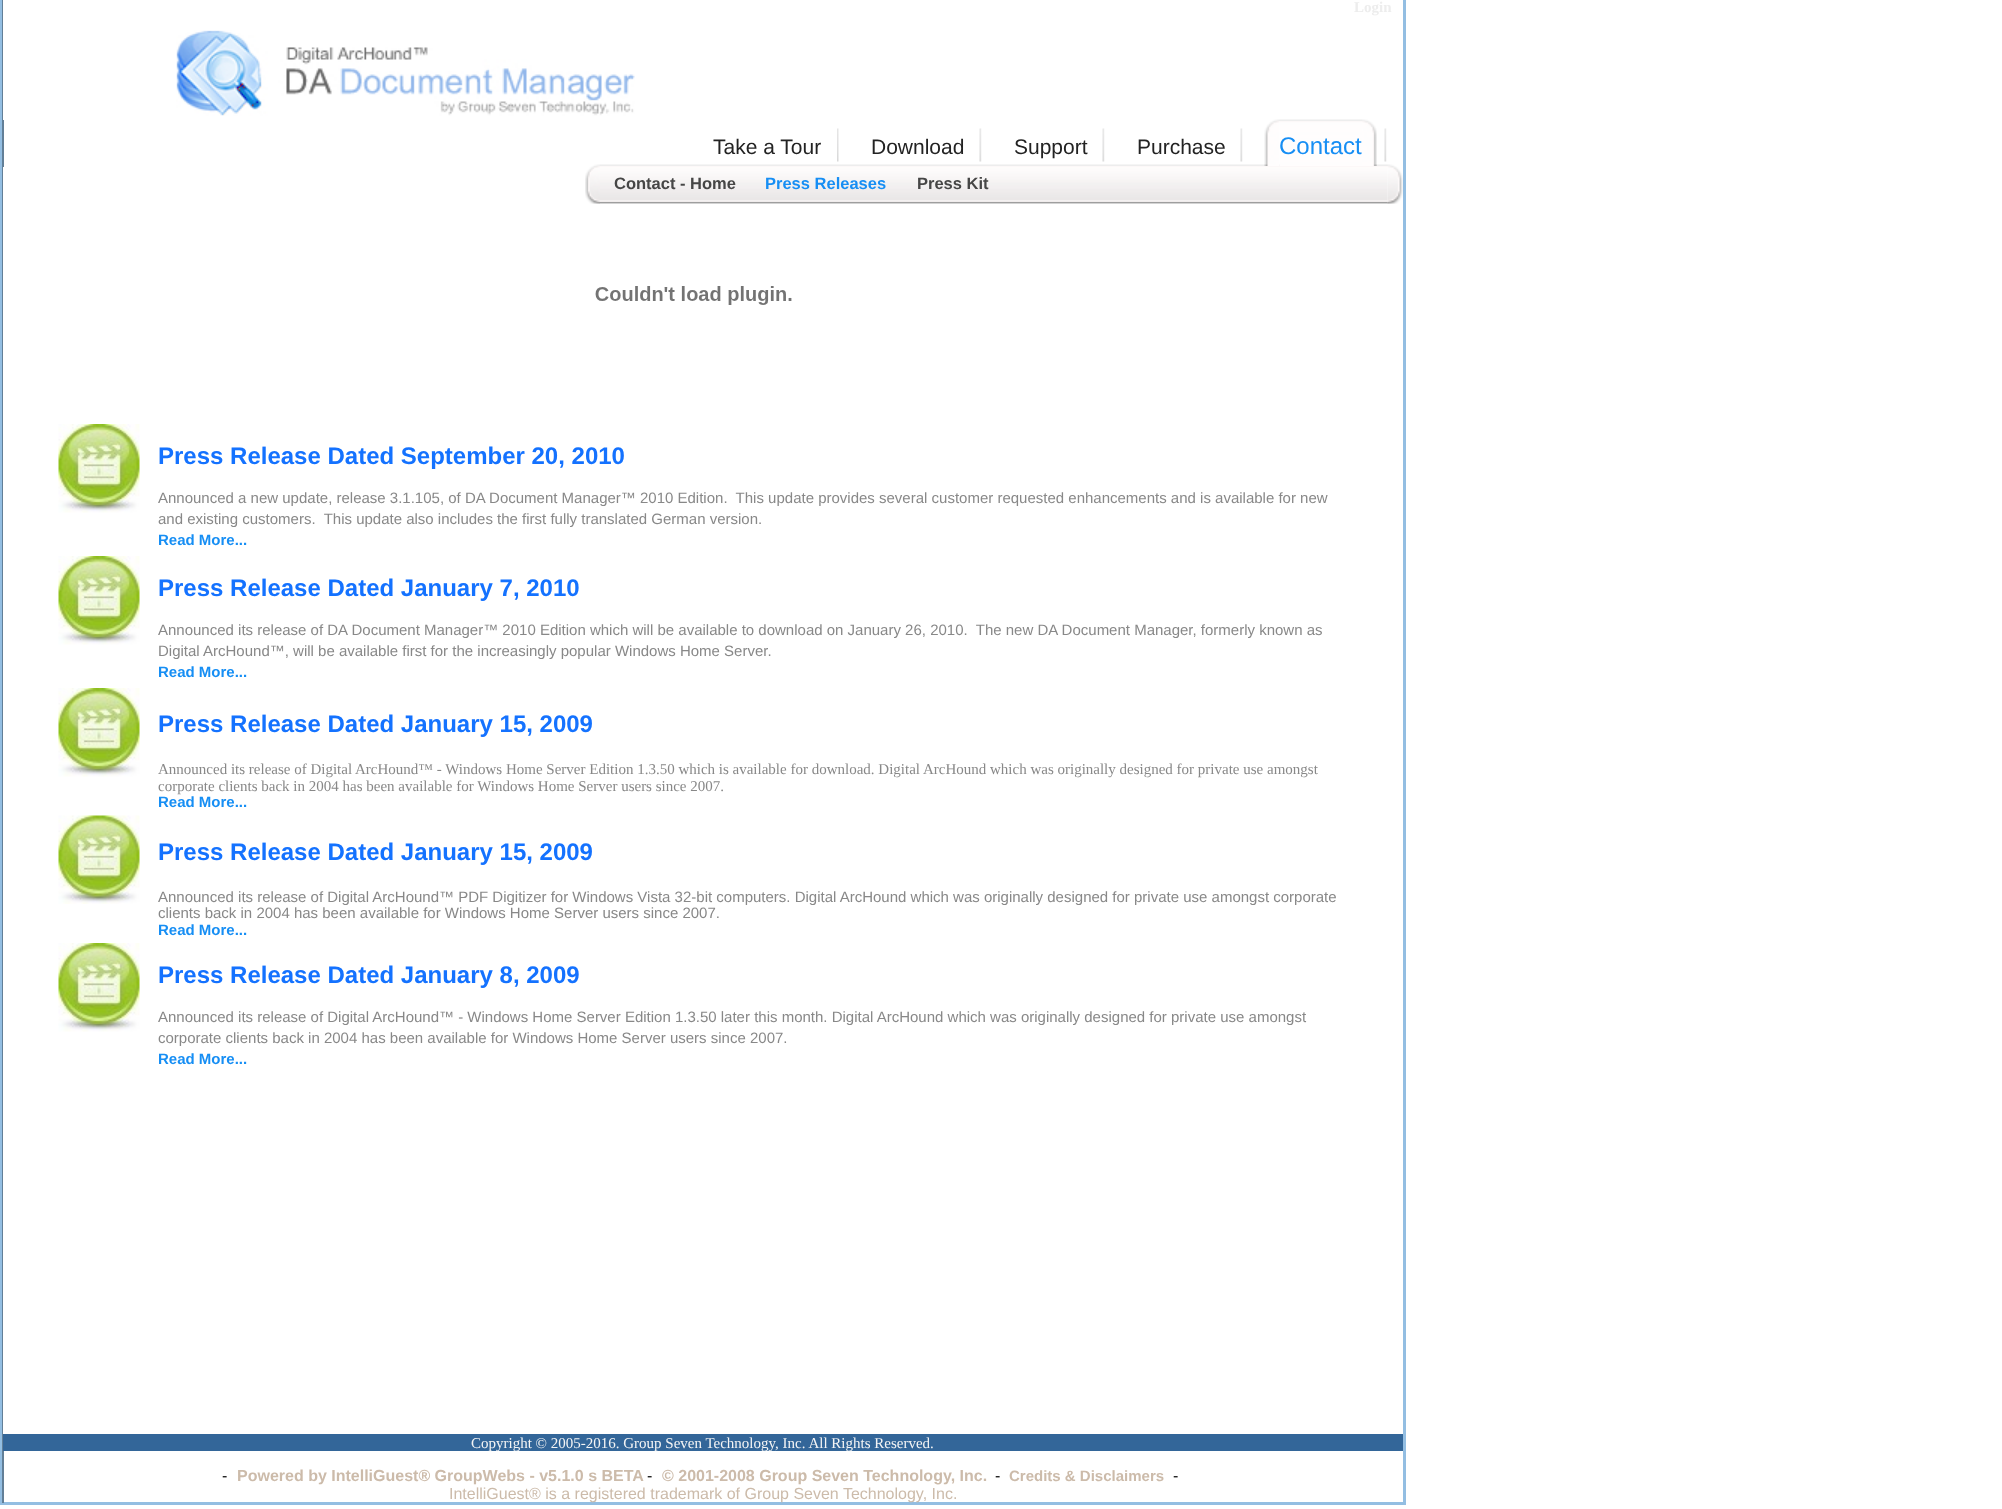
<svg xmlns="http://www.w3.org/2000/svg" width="2002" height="1509">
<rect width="100%" height="100%" fill="#fff"/>
<rect x="1" y="-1" width="1404" height="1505" fill="none" stroke="#93bee2" stroke-width="2"/>
<rect x="1403" width="1" height="1503" fill="#93bee2"/>
<rect x="2" y="1502" width="1402" height="1" fill="#93bee2"/>
<rect x="2" width="2" height="1503" fill="#627f97"/>
<rect x="3" width="1" height="120" fill="#fff"/>
<text x="1354" y="12" style="font-family:Liberation Serif;font-size:15px;font-weight:bold;fill:#ededed">Login</text>
<image x="176" y="30" width="459" height="86" href="media/1.png"/>
<image x="1384" y="128" width="3" height="34" href="media/2.png"/>
<image x="837" y="128" width="2" height="34" href="media/3.png"/>
<text x="713" y="154" style="font-family:Liberation Sans;font-size:21px;fill:#232323">Take a Tour</text>
<image x="979" y="128" width="3" height="34" href="media/2.png"/>
<text x="871" y="154" style="font-family:Liberation Sans;font-size:21px;fill:#232323">Download</text>
<image x="1102" y="128" width="3" height="34" href="media/2.png"/>
<text x="1014" y="154" style="font-family:Liberation Sans;font-size:21px;fill:#232323">Support</text>
<image x="1240" y="128" width="3" height="34" href="media/2.png"/>
<text x="1137" y="154" style="font-family:Liberation Sans;font-size:21px;fill:#232323">Purchase</text>
<image x="600" y="164" width="788" height="40" href="media/8.png"/>
<image x="1264" y="119" width="16" height="47" href="media/4.png"/>
<image x="1279" y="119" width="83" height="47" href="media/5.png"/>
<text x="1279" y="154" style="font-family:Liberation Sans;font-size:24px;fill:#168ef4">Contact</text>
<image x="1362" y="119" width="15" height="47" href="media/6.png"/>
<image x="585" y="164" width="15" height="40" href="media/7.png"/>
<text x="614" y="189" style="font-family:Liberation Sans;font-size:16.5px;font-weight:bold;fill:#464646">Contact - Home</text>
<text x="765" y="189" style="font-family:Liberation Sans;font-size:16.5px;font-weight:bold;fill:#168ef4">Press Releases</text>
<text x="917" y="189" style="font-family:Liberation Sans;font-size:16.5px;font-weight:bold;fill:#464646">Press Kit</text>
<image x="1387" y="164" width="16" height="40" href="media/9.png"/>
<rect x="3" y="167" width="1" height="1267" fill="#fff"/>
<image x="595" y="286" width="197" height="19" href="media/10.png"/>
<image x="58" y="424" width="82" height="89" href="media/11.png"/>
<text x="158" y="464" style="font-family:Liberation Sans;font-size:24px;font-weight:bold;fill:#1472ff">Press Release Dated September 20, 2010</text>
<text x="158" y="503" style="font-family:Liberation Sans;font-size:15px;fill:#888" xml:space="preserve">Announced a new update, release 3.1.105, of DA Document Manager™ 2010 Edition.  This update provides several customer requested enhancements and is available for new</text>
<text x="158" y="524" style="font-family:Liberation Sans;font-size:15px;fill:#888" xml:space="preserve">and existing customers.  This update also includes the first fully translated German version.</text>
<text x="158" y="545" style="font-family:Liberation Sans;font-size:15px;font-weight:bold;fill:#168ef4">Read More...</text>
<image x="58" y="556" width="82" height="89" href="media/11.png"/>
<text x="158" y="596" style="font-family:Liberation Sans;font-size:24px;font-weight:bold;fill:#1472ff">Press Release Dated January 7, 2010</text>
<text x="158" y="635" style="font-family:Liberation Sans;font-size:15px;fill:#888" xml:space="preserve">Announced its release of DA Document Manager™ 2010 Edition which will be available to download on January 26, 2010.  The new DA Document Manager, formerly known as</text>
<text x="158" y="656" style="font-family:Liberation Sans;font-size:15px;fill:#888">Digital ArcHound™, will be available first for the increasingly popular Windows Home Server.</text>
<text x="158" y="677" style="font-family:Liberation Sans;font-size:15px;font-weight:bold;fill:#168ef4">Read More...</text>
<image x="58" y="688" width="82" height="89" href="media/11.png"/>
<text x="158" y="732" style="font-family:Liberation Sans;font-size:24px;font-weight:bold;fill:#1472ff">Press Release Dated January 15, 2009</text>
<text x="158" y="774" style="font-family:Liberation Serif;font-size:15px;fill:#888">Announced its release of Digital ArcHound™ - Windows Home Server Edition 1.3.50 which is available for download. Digital ArcHound which was originally designed for private use amongst</text>
<text x="158" y="791" style="font-family:Liberation Serif;font-size:15px;fill:#888">corporate clients back in 2004 has been available for Windows Home Server users since 2007.</text>
<text x="158" y="807" style="font-family:Liberation Sans;font-size:15px;font-weight:bold;fill:#168ef4">Read More...</text>
<image x="58" y="815" width="82" height="89" href="media/12.png"/>
<text x="158" y="860" style="font-family:Liberation Sans;font-size:24px;font-weight:bold;fill:#1472ff">Press Release Dated January 15, 2009</text>
<text x="158" y="902" style="font-family:Liberation Sans;font-size:15px;fill:#888">Announced its release of Digital ArcHound™ PDF Digitizer for Windows Vista 32-bit computers. Digital ArcHound which was originally designed for private use amongst corporate</text>
<text x="158" y="918" style="font-family:Liberation Sans;font-size:15px;fill:#888">clients back in 2004 has been available for Windows Home Server users since 2007.</text>
<text x="158" y="935" style="font-family:Liberation Sans;font-size:15px;font-weight:bold;fill:#168ef4">Read More...</text>
<image x="58" y="943" width="82" height="89" href="media/11.png"/>
<text x="158" y="983" style="font-family:Liberation Sans;font-size:24px;font-weight:bold;fill:#1472ff">Press Release Dated January 8, 2009</text>
<text x="158" y="1022" style="font-family:Liberation Sans;font-size:15px;fill:#888">Announced its release of Digital ArcHound™ - Windows Home Server Edition 1.3.50 later this month. Digital ArcHound which was originally designed for private use amongst</text>
<text x="158" y="1043" style="font-family:Liberation Sans;font-size:15px;fill:#888">corporate clients back in 2004 has been available for Windows Home Server users since 2007.</text>
<text x="158" y="1064" style="font-family:Liberation Sans;font-size:15px;font-weight:bold;fill:#168ef4">Read More...</text>
<rect x="3" y="1434" width="1400" height="17" fill="#369"/>
<text x="471" y="1448" style="font-family:Liberation Serif;font-size:15px;fill:#f5f5f5">Copyright © 2005-2016. Group Seven Technology, Inc. All Rights Reserved.</text>
<text x="222" y="1481" style="font-family:Liberation Sans;font-size:16px;fill:#000">-</text>
<text x="237" y="1481" style="font-family:Liberation Sans;font-size:16px;font-weight:bold;fill:#cba">Powered by IntelliGuest® GroupWebs - v5.1.0 s BETA</text>
<text x="647" y="1481" style="font-family:Liberation Sans;font-size:16px;fill:#000">-</text>
<text x="662" y="1481" style="font-family:Liberation Sans;font-size:16px;font-weight:bold;fill:#cba">© 2001-2008 Group Seven Technology, Inc.</text>
<text x="995" y="1481" style="font-family:Liberation Sans;font-size:16px;fill:#000">-</text>
<text x="1009" y="1481" style="font-family:Liberation Sans;font-size:15px;font-weight:bold;fill:#cba">Credits &amp; Disclaimers</text>
<text x="1173" y="1481" style="font-family:Liberation Sans;font-size:16px;fill:#000">-</text>
<text x="449" y="1499" style="font-family:Liberation Sans;font-size:16px;fill:#cba">IntelliGuest® is a registered trademark of Group Seven Technology, Inc.</text>
</svg>
